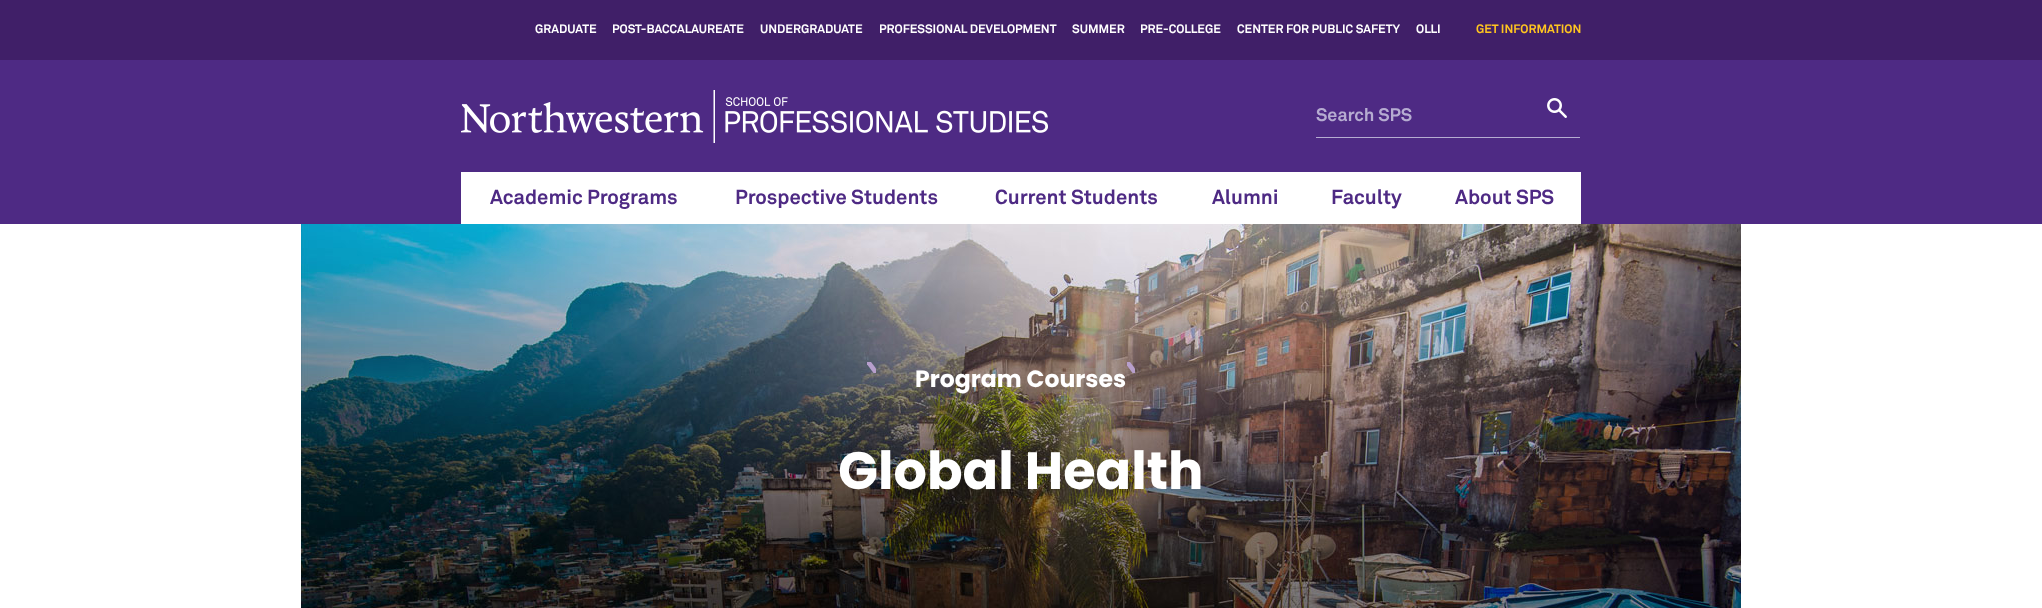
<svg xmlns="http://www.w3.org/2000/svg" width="2042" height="608">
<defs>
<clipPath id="clip1"><rect x="867" y="362" width="9" height="11"/></clipPath>
<clipPath id="clip2"><rect x="1127" y="362" width="8" height="11"/></clipPath>
</defs>
<rect width="100%" height="100%" fill="#fff"/>
<rect y="60" width="2042" height="164" fill="#4e2a84"/>
<rect width="2042" height="60" fill="#401f68"/>
<text x="535" y="33" style="font-family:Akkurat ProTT;font-size:12.1px;font-weight:bold;fill:#fff">GRADUATE</text>
<text x="612" y="33" style="font-family:Akkurat ProTT;font-size:12.1px;font-weight:bold;fill:#fff">POST-BACCALAUREATE</text>
<text x="760" y="33" style="font-family:Akkurat ProTT;font-size:12.1px;font-weight:bold;fill:#fff">UNDERGRADUATE</text>
<text x="879" y="33" style="font-family:Akkurat ProTT;font-size:12.1px;font-weight:bold;fill:#fff">PROFESSIONAL DEVELOPMENT</text>
<text x="1072" y="33" style="font-family:Akkurat ProTT;font-size:12.1px;font-weight:bold;fill:#fff">SUMMER</text>
<text x="1140" y="33" style="font-family:Akkurat ProTT;font-size:12.1px;font-weight:bold;fill:#fff">PRE-COLLEGE</text>
<text x="1237" y="33" style="font-family:Akkurat ProTT;font-size:12.1px;font-weight:bold;fill:#fff">CENTER FOR PUBLIC SAFETY</text>
<text x="1416" y="33" style="font-family:Akkurat ProTT;font-size:12.1px;font-weight:bold;fill:#fff">OLLI</text>
<text x="1476" y="33" style="font-family:Akkurat ProTT;font-size:12.1px;font-weight:bold;fill:#ffc520">GET INFORMATION</text>
<image x="461" y="90" width="587" height="53" href="media/1.png"/>
<rect x="1316" y="137" width="264" height="1" fill="#b6acd1"/>
<text x="1316" y="121" style="font-family:Akkurat ProTT;font-size:18px;font-weight:bold;fill:#b6acd1">Search SPS</text>
<image x="1547" y="98" width="20" height="20" href="media/2.png"/>
<rect x="461" y="172" width="1120" height="52" fill="#fff"/>
<text x="490" y="204" style="font-family:Akkurat ProTT;font-size:20.25px;font-weight:bold;fill:#4e2a84">Academic Programs</text>
<text x="735" y="204" style="font-family:Akkurat ProTT;font-size:20.25px;font-weight:bold;fill:#4e2a84">Prospective Students</text>
<text x="995" y="204" style="font-family:Akkurat ProTT;font-size:20.25px;font-weight:bold;fill:#4e2a84">Current Students</text>
<text x="1212" y="204" style="font-family:Akkurat ProTT;font-size:20.25px;font-weight:bold;fill:#4e2a84">Alumni</text>
<text x="1331" y="204" style="font-family:Akkurat ProTT;font-size:20.25px;font-weight:bold;fill:#4e2a84">Faculty</text>
<text x="1455" y="204" style="font-family:Akkurat ProTT;font-size:20.25px;font-weight:bold;fill:#4e2a84">About SPS</text>
<image x="301" y="224" width="1440" height="384" href="media/3.png"/>
<g clip-path="url(#clip1)">
<path d="M859 352v1.5l14.5 19.5h2.5v-4.5l-12.5-16.5z" fill="#b79fcc"/>
</g>
<g clip-path="url(#clip2)">
<path d="M1118 352v1.5l14.5 19.5h2.5v-4.5l-12.5-16.5z" fill="#b79fcc"/>
</g>
<text x="915" y="387" style="font-family:Poppins;font-size:23.5px;font-weight:bold;fill:#fff">Program Courses</text>
<text x="838" y="489" style="font-family:Poppins;font-size:52.5px;font-weight:bold;fill:#fff">Global Health</text>
</svg>
